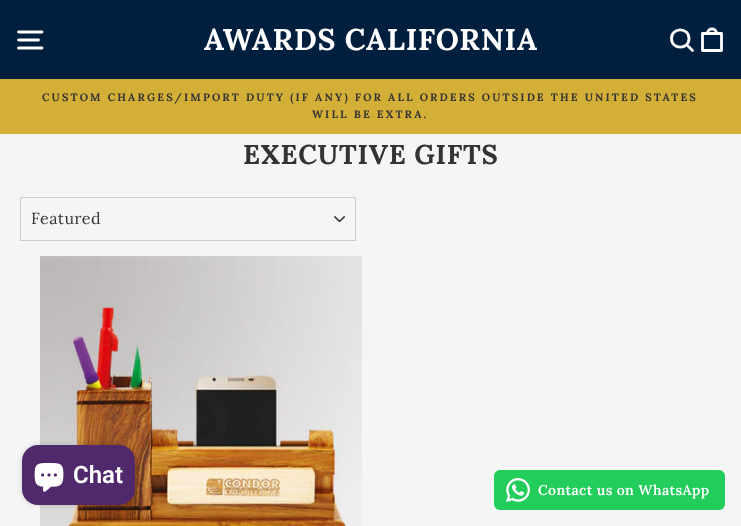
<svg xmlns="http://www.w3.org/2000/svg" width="741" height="526">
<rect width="100%" height="100%" fill="#f5f5f5"/>
<rect width="741" height="79" fill="#001f3f"/>
<path d="M18.5 32h23.5m-23.5 8h20m-20 8h23.5" fill="none" stroke="#fff" stroke-width="2.8" stroke-linecap="round" stroke-linejoin="round"/>
<text x="204" y="50" style="font-family:Lora;font-size:30px;font-weight:bold;letter-spacing:0.75px;fill:#fff">AWARDS CALIFORNIA</text>
<path d="M689 38.5c0 11.5-17.5 11.5-17.5 0c0-11.5 17.5-11.5 17.5 0zm3.5 12l-6-6m16-11h19v17h-19zm5 0c0-6 9-6 9 0" fill="none" stroke="#fff" stroke-width="2.8" stroke-linecap="round" stroke-linejoin="round"/>
<rect y="79" width="741" height="55" fill="#d4af37"/>
<text x="42" y="101" style="font-family:Lora;font-size:10.8px;font-weight:bold;letter-spacing:2.15px;fill:#333">CUSTOM CHARGES/IMPORT DUTY (IF ANY) FOR ALL ORDERS OUTSIDE THE UNITED STATES</text>
<text x="312" y="118" style="font-family:Lora;font-size:10.8px;font-weight:bold;letter-spacing:2.15px;fill:#333">WILL BE EXTRA.</text>
<text x="243" y="164" style="font-family:Lora;font-size:27.25px;font-weight:bold;letter-spacing:0.7px;fill:#333">EXECUTIVE GIFTS</text>
<image x="334" y="216" width="11" height="6" href="media/1.png"/>
<rect x="20.5" y="197.5" width="335" height="43" fill="none" stroke="#ccc"/>
<text x="31" y="224" style="font-family:Lora;font-size:16px;letter-spacing:0.5px;fill:#333">Featured</text>
<image x="40" y="256" width="322" height="270" href="media/2.png"/>
<rect x="22" y="445" width="113" height="60" rx="16" fill="#00000026" filter="blur(2.5px)"/>
<rect x="22" y="445" width="113" height="60" rx="16" fill="#4f296c"/>
<image x="34" y="463" width="30" height="29" href="media/3.png"/>
<text x="73" y="483" style="font-family:Roboto;font-size:24px;font-weight:600;fill:#fff">Chat</text>
<rect x="494" y="470" width="231" height="40" rx="6" fill="#22cd5b"/>
<image x="506" y="478" width="24" height="24" href="media/4.png"/>
<text x="538" y="495" style="font-family:Lora;font-size:14px;font-weight:600;letter-spacing:0.35px;fill:#fff">Contact us on WhatsApp</text>
</svg>
